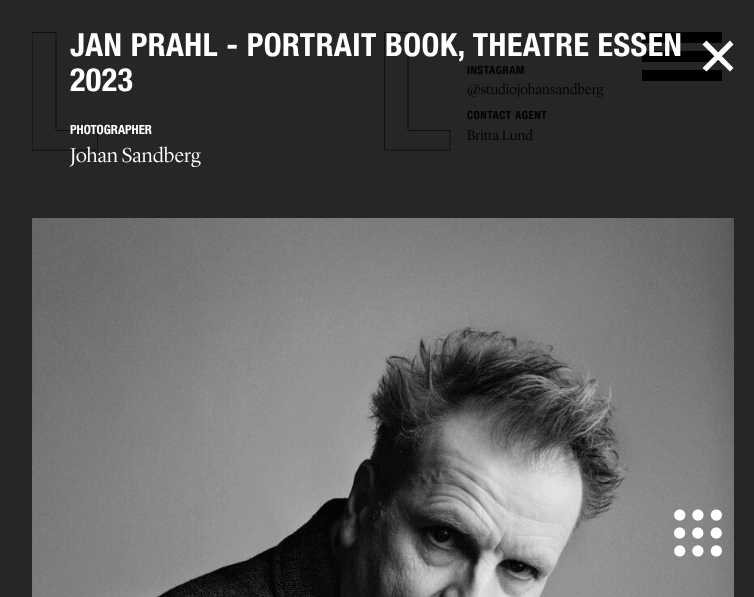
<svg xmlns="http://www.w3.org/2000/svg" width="754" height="597">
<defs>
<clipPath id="clip1"><rect x="32" y="32" width="690" height="120"/></clipPath>
</defs>
<rect width="100%" height="100%" fill="#262626"/>
<g clip-path="url(#clip1)">
<path d="M97.5 150v-19.5h-41.5v-98h-24v117.5z" fill="none" stroke="#000" stroke-width="0.6"/>
</g>
<path d="M450 150v-19.5h-42v-98h-23.5v117.5z" fill="none" stroke="#000" stroke-width="0.6"/>
<rect x="642" y="32" width="80" height="11" fill="#000"/>
<rect x="642" y="51" width="80" height="11" fill="#000"/>
<text x="70" y="56" style="font-family:Helvetica Neue;font-size:32px;font-weight:bold;letter-spacing:0.5px;fill:#fff">JAN PRAHL - PORTRAIT BOOK, THEATRE ESSEN</text>
<text x="70" y="91" style="font-family:Helvetica Neue;font-size:32px;font-weight:bold;letter-spacing:0.5px;fill:#fff">2023</text>
<text x="70" y="134" style="font-family:Helvetica Neue;font-size:12.75px;font-weight:bold;fill:#fff">PHOTOGRAPHER</text>
<text x="70" y="162" style="font-family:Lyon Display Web;font-size:20.75px;font-weight:300;fill:#fff">Johan Sandberg</text>
<rect x="642" y="70" width="80" height="11" fill="#000"/>
<path d="M702.5 68l27.5-27.5l3.5 4l-27 27z" fill="#fff" fill-rule="evenodd"/>
<path d="M706.5 40.5l27 27.5l-3.5 3.5l-27.5-27z" fill="#fff" fill-rule="evenodd"/>
<rect y="539" width="754" height="1" fill="#212121"/>
<image x="32" y="218" width="702" height="379" href="media/1.png"/>
<image x="674" y="509" width="48" height="48" href="media/2.png"/>
<text x="467" y="74" style="font-family:Helvetica Neue;font-size:11.25px;font-weight:bold;letter-spacing:0.5px;fill:#000">INSTAGRAM</text>
<text x="467" y="94" style="font-family:Lyon Display Web;font-size:14.5px;font-weight:300;fill:#000">@studiojohansandberg</text>
<text x="467" y="119" style="font-family:Helvetica Neue;font-size:11.25px;font-weight:bold;letter-spacing:0.5px;fill:#000">CONTACT AGENT</text>
<text x="467" y="140" style="font-family:Lyon Display Web;font-size:14.5px;font-weight:300;fill:#000">Britta Lund</text>
</svg>
